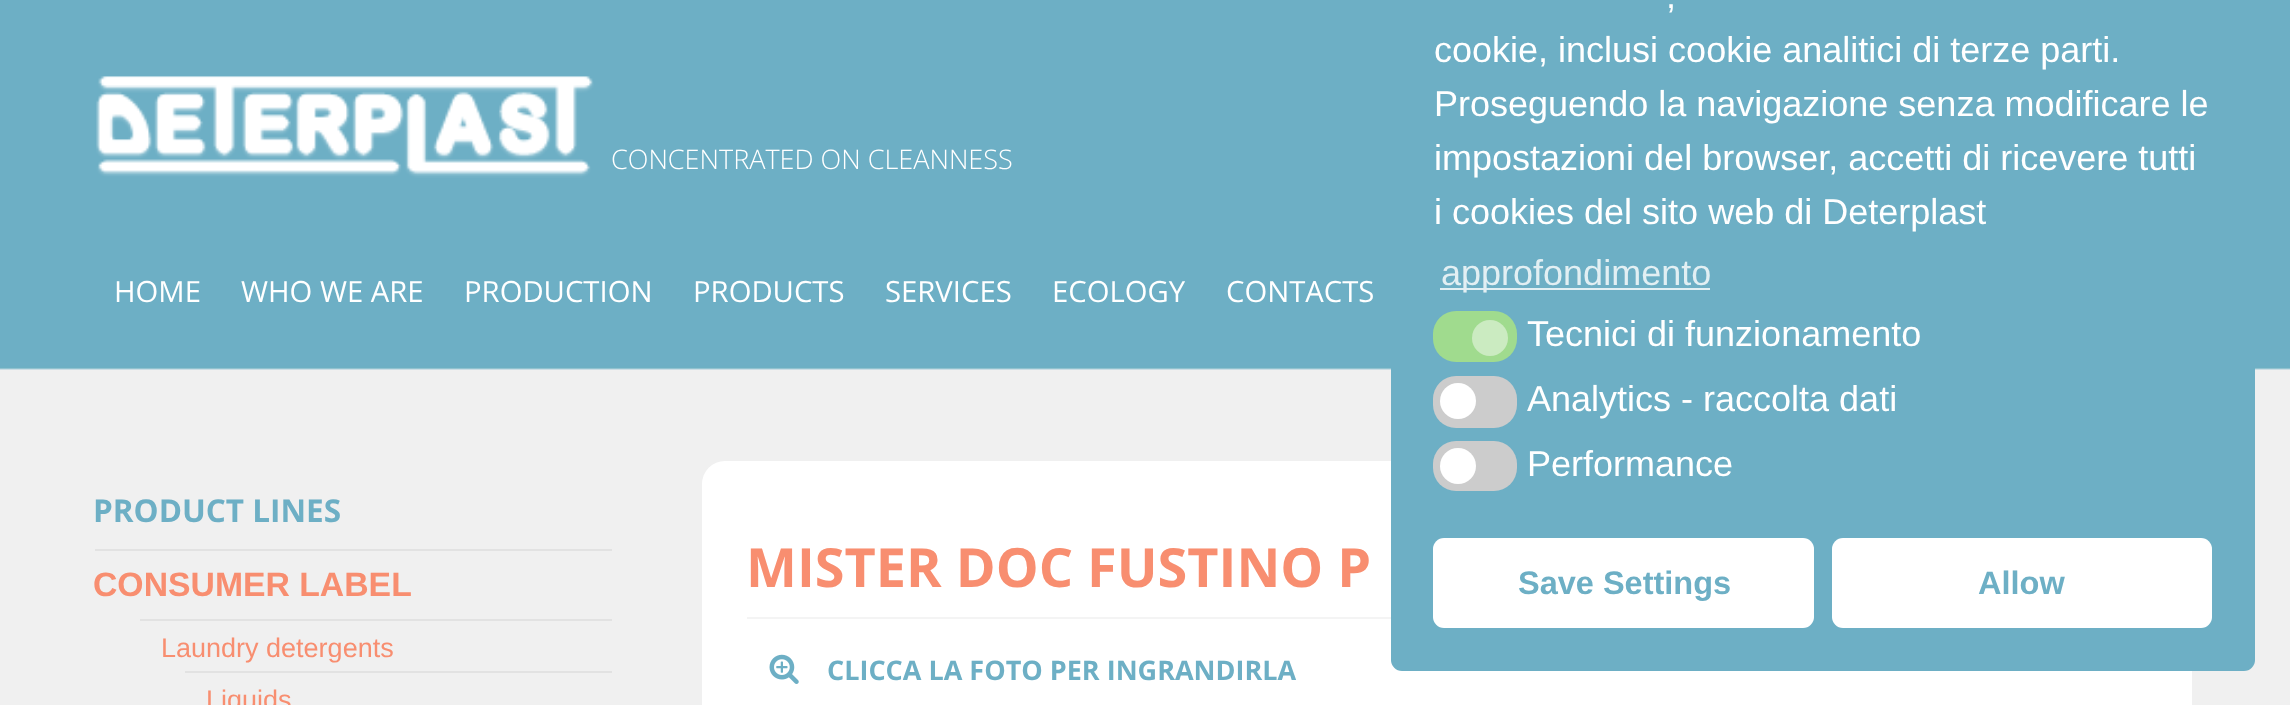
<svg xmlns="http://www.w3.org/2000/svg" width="2290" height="705">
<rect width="100%" height="100%" fill="#f0f0f0"/>
<image x="0" y="0" width="2290" height="370" href="media/1.png"/>
<image x="96" y="76" width="498" height="102" href="media/2.png"/>
<text x="611" y="169" style="font-family:Open Sans;font-size:27px;font-weight:300;fill:#fff">CONCENTRATED ON CLEANNESS</text>
<text x="114" y="302" style="font-family:Open Sans;font-size:29.25px;fill:#fff">HOME</text>
<text x="241" y="302" style="font-family:Open Sans;font-size:29.25px;fill:#fff">WHO WE ARE</text>
<text x="464" y="302" style="font-family:Open Sans;font-size:29.25px;fill:#fff">PRODUCTION</text>
<text x="693" y="302" style="font-family:Open Sans;font-size:29.25px;fill:#fff">PRODUCTS</text>
<text x="885" y="302" style="font-family:Open Sans;font-size:29.25px;fill:#fff">SERVICES</text>
<text x="1052" y="302" style="font-family:Open Sans;font-size:29.25px;fill:#fff">ECOLOGY</text>
<text x="1226" y="302" style="font-family:Open Sans;font-size:29.25px;fill:#fff">CONTACTS</text>
<text x="93" y="522" style="font-family:Open Sans;font-size:31.5px;font-weight:bold;fill:#6dafc5">PRODUCT LINES</text>
<rect x="95" y="549" width="517" height="2" fill="#e2e2e2"/>
<text x="93" y="596" style="font-family:Liberation Sans;font-size:33.75px;font-weight:bold;fill:#f88e70">CONSUMER LABEL</text>
<rect x="140" y="619" width="472" height="2" fill="#e2e2e2"/>
<text x="161" y="657" style="font-family:Liberation Sans;font-size:27px;fill:#f88e70">Laundry detergents</text>
<rect x="185" y="671" width="427" height="2" fill="#e2e2e2"/>
<text x="206" y="709" style="font-family:Liberation Sans;font-size:27px;fill:#f88e70">Liquids</text>
<rect x="702" y="461" width="1490" height="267" rx="23" fill="#fff"/>
<rect x="747" y="617" width="644" height="2" fill="#f4f4f4"/>
<text x="746" y="587" style="font-family:Open Sans;font-size:54px;font-weight:bold;fill:#f88e70">MISTER DOC FUSTINO P</text>
<image x="769" y="654" width="30" height="30" href="media/3.png"/>
<text x="827" y="680" style="font-family:Open Sans;font-size:27px;font-weight:bold;fill:#6dafc5">CLICCA LA FOTO PER INGRANDIRLA</text>
<rect x="1391" y="-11" width="864" height="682" rx="11" fill="#6dafc5"/>
<text x="1666" y="8" style="font-family:Liberation Sans;font-size:36px;fill:#fff">,</text>
<text x="1434" y="62" style="font-family:Liberation Sans;font-size:36px;fill:#fff">cookie, inclusi cookie analitici di terze parti.</text>
<text x="1434" y="116" style="font-family:Liberation Sans;font-size:36px;fill:#fff">Proseguendo la navigazione senza modificare le</text>
<text x="1434" y="170" style="font-family:Liberation Sans;font-size:36px;fill:#fff">impostazioni del browser, accetti di ricevere tutti</text>
<text x="1434" y="224" style="font-family:Liberation Sans;font-size:36px;fill:#fff">i cookies del sito web di Deterplast</text>
<rect x="1440" y="288" width="270" height="2" fill="#e2eff3"/>
<text x="1441" y="285" style="font-family:Liberation Sans;font-size:36px;fill:#e2eff3">approfondimento</text>
<rect x="1433" y="311" width="84" height="51" rx="23" fill="#a0db8e"/>
<circle cx="1490" cy="338" r="18" fill="#cbebc1"/>
<text x="1527" y="346" style="font-family:Liberation Sans;font-size:36px;fill:#fff">Tecnici di funzionamento</text>
<rect x="1433" y="376" width="84" height="52" rx="23" fill="#ccc"/>
<circle cx="1458" cy="401" r="18" fill="#fff"/>
<text x="1527" y="411" style="font-family:Liberation Sans;font-size:36px;fill:#fff">Analytics - raccolta dati</text>
<rect x="1433" y="441" width="84" height="50" rx="23" fill="#ccc"/>
<circle cx="1458" cy="466" r="18" fill="#fff"/>
<text x="1527" y="476" style="font-family:Liberation Sans;font-size:36px;fill:#fff">Performance</text>
<rect x="1433" y="538" width="381" height="90" rx="11" fill="#fff"/>
<text x="1518" y="594" style="font-family:Liberation Sans;font-size:32.5px;font-weight:bold;fill:#6dafc5">Save Settings</text>
<rect x="1832" y="538" width="380" height="90" rx="11" fill="#fff"/>
<text x="1978" y="594" style="font-family:Liberation Sans;font-size:32.5px;font-weight:bold;fill:#6dafc5">Allow</text>
</svg>
